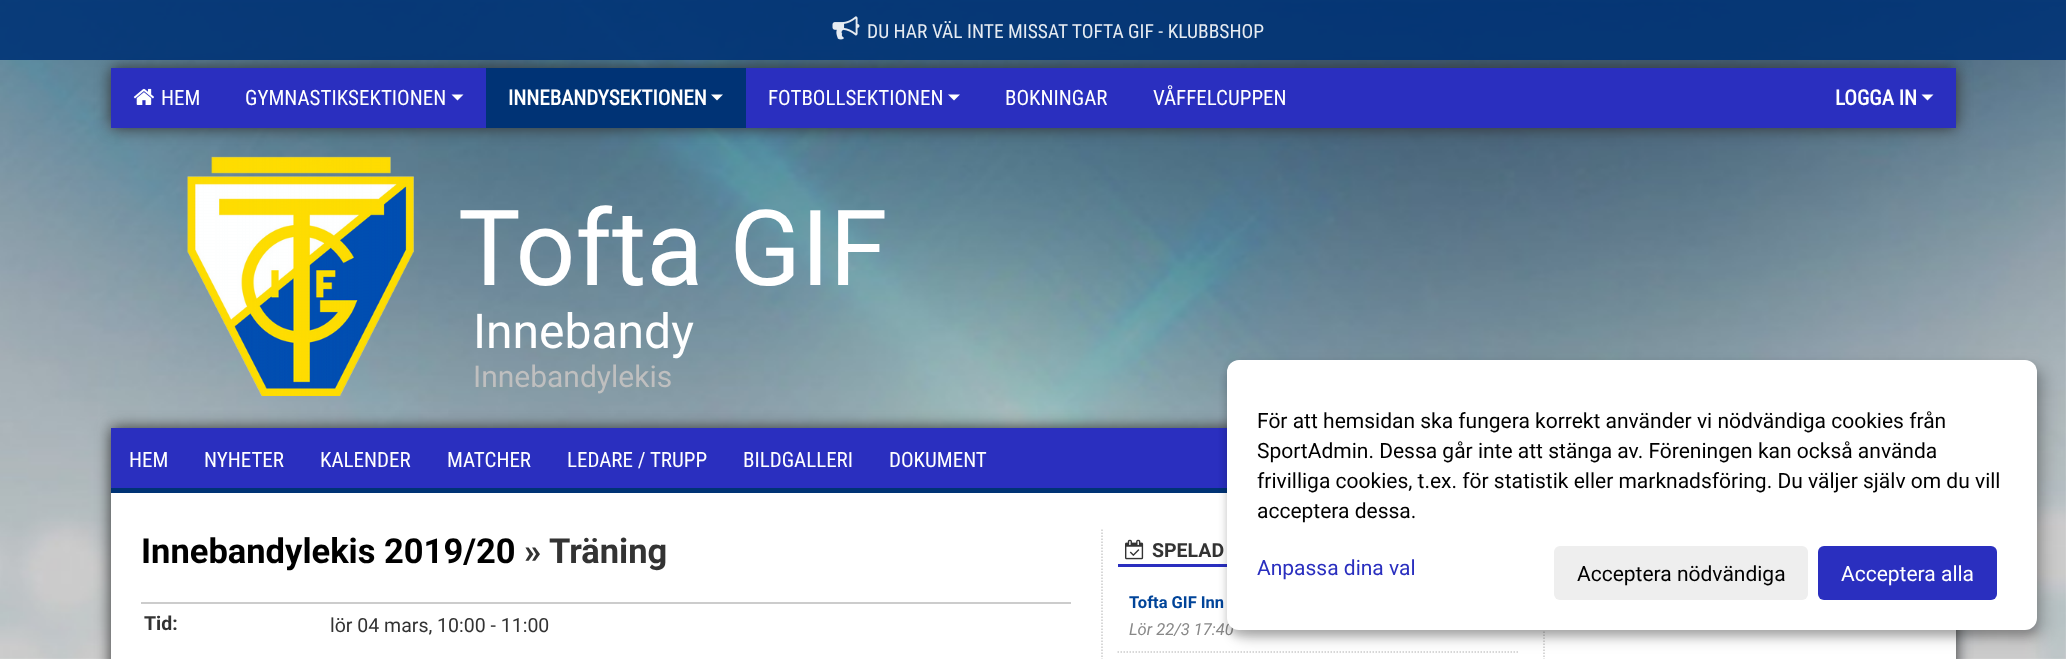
<svg xmlns="http://www.w3.org/2000/svg" width="2066" height="659">
<rect width="100%" height="100%" fill="#fff"/>
<image x="0" y="0" width="2066" height="659" href="media/1.png"/>
<rect x="111" y="68" width="1845" height="60" fill="#333" filter="blur(7.5px)"/>
<rect width="2066" height="60" fill="#003375e6"/>
<image x="832" y="16" width="28" height="24" href="media/2.png"/>
<text x="867" y="38" style="font-family:Roboto Condensed;font-size:19.5px;fill:#e6ebf1">DU HAR VÄL INTE MISSAT TOFTA GIF - KLUBBSHOP</text>
<rect x="111" y="68" width="1845" height="60" fill="#2a2fbf"/>
<image x="133" y="88" width="21" height="17" href="media/3.png"/>
<text x="161" y="105" style="font-family:Roboto Condensed;font-size:21px;fill:#fff">HEM</text>
<text x="245" y="105" style="font-family:Roboto Condensed;font-size:21px;fill:#fff">GYMNASTIKSEKTIONEN</text>
<path d="M451.5 94.5h12l-6 6z" fill="#fff"/>
<rect x="486" y="68" width="260" height="60" fill="#003375"/>
<text x="508" y="105" style="font-family:Roboto Condensed;font-size:21px;font-weight:bold;fill:#fff">INNEBANDYSEKTIONEN</text>
<path d="M711 94.5h12l-6 6z" fill="#fff"/>
<text x="768" y="105" style="font-family:Roboto Condensed;font-size:21px;fill:#fff">FOTBOLLSEKTIONEN</text>
<path d="M948 94.5h12l-6 6z" fill="#fff"/>
<text x="1005" y="105" style="font-family:Roboto Condensed;font-size:21px;fill:#fff">BOKNINGAR</text>
<text x="1153" y="105" style="font-family:Roboto Condensed;font-size:21px;fill:#fff">VÅFFELCUPPEN</text>
<text x="1835" y="105" style="font-family:Roboto Condensed;font-size:21px;font-weight:bold;fill:#fff">LOGGA IN</text>
<path d="M1921.5 94.5h12l-6 6z" fill="#fff"/>
<image x="187" y="156" width="227" height="240" href="media/4.png"/>
<text x="458" y="285" style="font-family:Roboto;font-size:105px;fill:#fff">Tofta GIF</text>
<text x="473" y="348" style="font-family:Roboto;font-size:48px;fill:#fff">Innebandy</text>
<text x="473" y="387" style="font-family:Roboto;font-size:30px;fill:#bfbfbf">Innebandylekis</text>
<rect x="111" y="428" width="1845" height="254" fill="#333" filter="blur(7.5px)"/>
<rect x="111" y="493" width="1845" height="166" fill="#fff"/>
<rect x="111" y="428" width="1116" height="60" fill="#2a2fbf"/>
<text x="129" y="467" style="font-family:Roboto Condensed;font-size:21px;fill:#fff">HEM</text>
<text x="204" y="467" style="font-family:Roboto Condensed;font-size:21px;fill:#fff">NYHETER</text>
<text x="320" y="467" style="font-family:Roboto Condensed;font-size:21px;fill:#fff">KALENDER</text>
<text x="447" y="467" style="font-family:Roboto Condensed;font-size:21px;fill:#fff">MATCHER</text>
<text x="567" y="467" style="font-family:Roboto Condensed;font-size:21px;fill:#fff">LEDARE / TRUPP</text>
<text x="743" y="467" style="font-family:Roboto Condensed;font-size:21px;fill:#fff">BILDGALLERI</text>
<text x="889" y="467" style="font-family:Roboto Condensed;font-size:21px;fill:#fff">DOKUMENT</text>
<rect x="111" y="488" width="1116" height="5" fill="#003375"/>
<text x="141" y="563" style="font-family:Roboto;font-size:34.5px;font-weight:bold;fill:#000">Innebandylekis 2019/20</text>
<text x="524" y="563" style="font-family:Roboto;font-size:34.5px;font-weight:bold;fill:#333">» Träning</text>
<rect x="141" y="602" width="930" height="2" fill="#ccc"/>
<text x="144" y="630" style="font-family:Roboto;font-size:19.5px;font-weight:bold;fill:#333">Tid:</text>
<text x="330" y="632" style="font-family:Roboto;font-size:19.5px;fill:#333">lör 04 mars, 10:00 - 11:00</text>
<path d="M1102 529.5v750" fill="none" stroke="#ccc" stroke-width="1.5" stroke-dasharray="1.5 1.5"/>
<rect x="1118" y="564" width="109" height="3" fill="#2a2fbf"/>
<image x="1125" y="539" width="19" height="21" href="media/5.png"/>
<text x="1152" y="557" style="font-family:Roboto;font-size:19.5px;font-weight:bold;fill:#333">SPELAD</text>
<text x="1129" y="608" style="font-family:Roboto;font-size:16.5px;font-weight:bold;fill:#049">Tofta GIF Inn</text>
<path d="M1117.5 652h400.5" fill="none" stroke="#ccc" stroke-width="1.5" stroke-dasharray="1.5 1.5"/>
<text x="1129" y="635" style="font-family:Roboto;font-size:16.5px;font-style:italic;fill:#888">Lör 22/3 17:40</text>
<path d="M1544 529.5v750" fill="none" stroke="#ccc" stroke-width="1.5" stroke-dasharray="1.5 1.5"/>
<rect x="1235" y="368" width="810" height="270" rx="12" fill="#00000030" filter="blur(7.5px)"/>
<rect x="1227" y="366" width="810" height="270" rx="12" fill="#00000033" filter="blur(4.5px)"/>
<rect x="1227" y="360" width="810" height="270" rx="12" fill="#fff"/>
<text x="1257" y="428" style="font-family:Roboto;font-size:21px;fill:#000">För att hemsidan ska fungera korrekt använder vi nödvändiga cookies från</text>
<text x="1257" y="458" style="font-family:Roboto;font-size:21px;fill:#000">SportAdmin. Dessa går inte att stänga av. Föreningen kan också använda</text>
<text x="1257" y="488" style="font-family:Roboto;font-size:21px;fill:#000">frivilliga cookies, t.ex. för statistik eller marknadsföring. Du väljer själv om du vill</text>
<text x="1257" y="518" style="font-family:Roboto;font-size:21px;fill:#000">acceptera dessa.</text>
<text x="1257" y="575" style="font-family:Roboto;font-size:21px;fill:#2a2fbf">Anpassa dina val</text>
<rect x="1554" y="546" width="254" height="54" rx="6" fill="#eee"/>
<text x="1577" y="581" style="font-family:Roboto;font-size:21px;fill:#000">Acceptera nödvändiga</text>
<rect x="1818" y="546" width="179" height="54" rx="6" fill="#2a2fbf"/>
<text x="1841" y="581" style="font-family:Roboto;font-size:21px;fill:#fff">Acceptera alla</text>
</svg>
